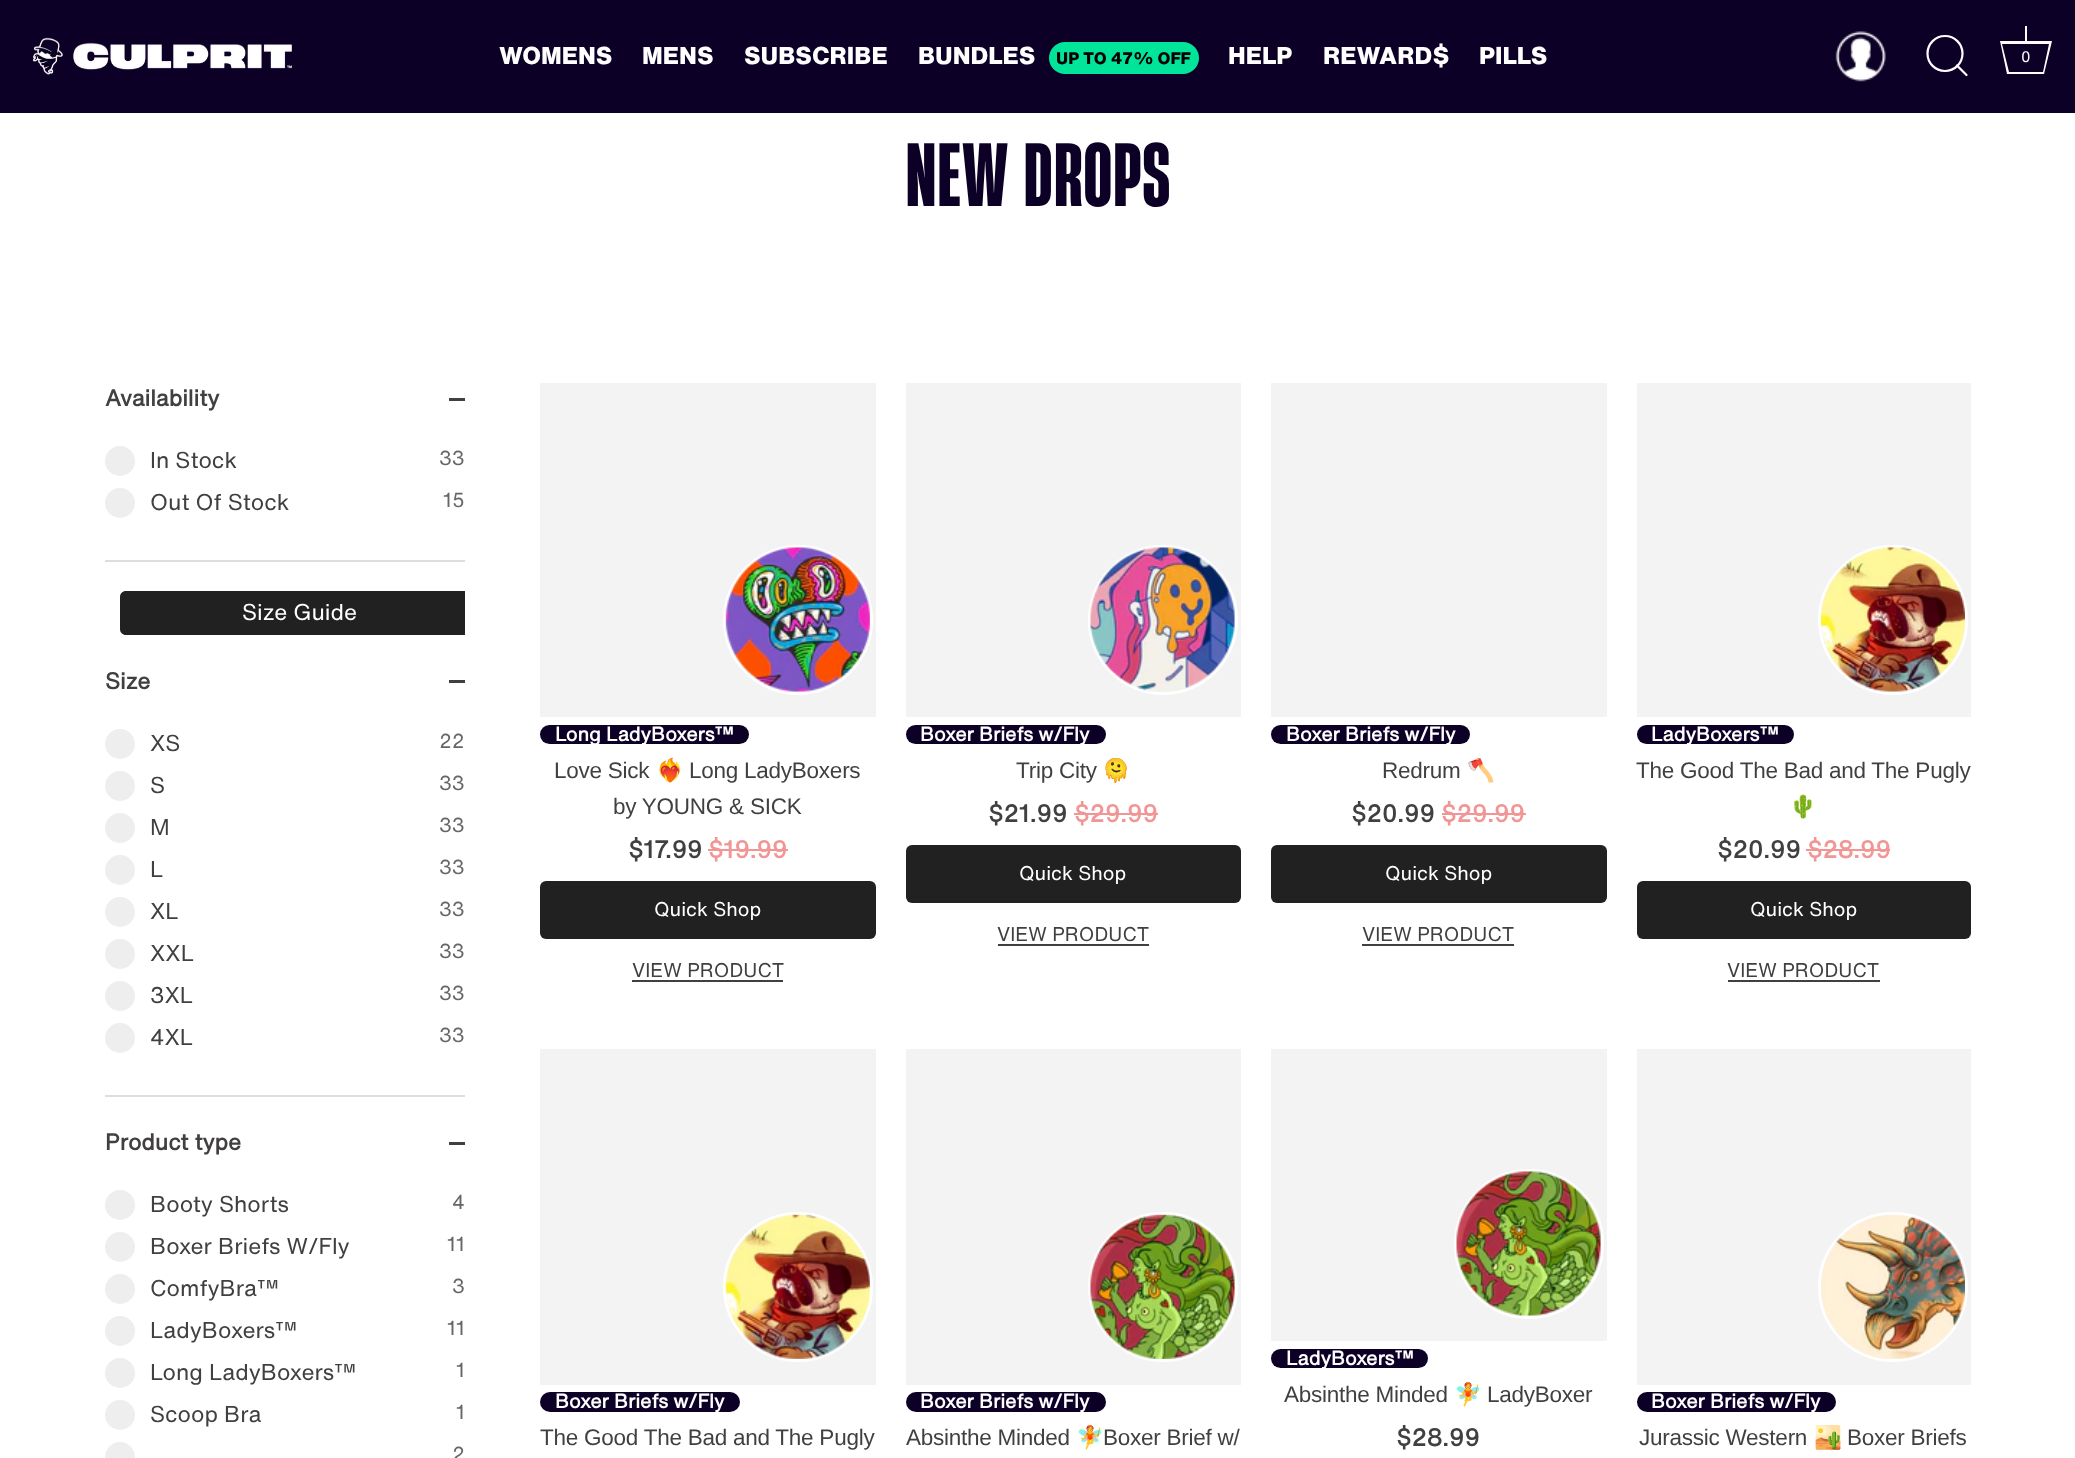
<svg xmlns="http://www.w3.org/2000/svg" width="2075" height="1458">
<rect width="100%" height="100%" fill="#fff"/>
<rect width="2075" height="113" fill="#0d0026"/>
<image x="33" y="37" width="259" height="38" href="media/1.png"/>
<text x="499" y="64" style="font-family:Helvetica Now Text;font-size:24px;font-weight:800;fill:#fff">WOMENS</text>
<text x="642" y="64" style="font-family:Helvetica Now Text;font-size:24px;font-weight:800;fill:#fff">MENS</text>
<text x="744" y="64" style="font-family:Helvetica Now Text;font-size:24px;font-weight:800;fill:#fff">SUBSCRIBE</text>
<text x="918" y="64" style="font-family:Helvetica Now Text;font-size:24px;font-weight:800;fill:#fff">BUNDLES</text>
<rect x="1049" y="42" width="150" height="32" rx="16" fill="#00e599"/>
<text x="1056" y="64" style="font-family:Helvetica Now Text;font-size:16.5px;font-weight:800;fill:#000">UP TO 47% OFF</text>
<text x="1228" y="64" style="font-family:Helvetica Now Text;font-size:24px;font-weight:800;fill:#fff">HELP</text>
<text x="1323" y="64" style="font-family:Helvetica Now Text;font-size:24px;font-weight:800;fill:#fff">REWARD$</text>
<text x="1479" y="64" style="font-family:Helvetica Now Text;font-size:24px;font-weight:800;fill:#fff">PILLS</text>
<image x="1835" y="31" width="51" height="51" href="media/2.png"/>
<circle cx="1945" cy="53.5" r="17.5" fill="none" stroke="#fff" stroke-width="2.2"/>
<path d="M1966.5 75l-9.5-9.5" fill="none" stroke="#fff" stroke-width="2.2" stroke-linecap="round" stroke-linejoin="round"/>
<rect x="2025" y="26" width="2" height="15" fill="#fff"/>
<path d="M2049 44l-6 28h-34l-7-28h47m3-3h-52l7 33h37z" fill="#fff"/>
<text x="2021" y="62" style="font-family:Helvetica Now Text;font-size:15px;letter-spacing:1px;fill:#fff">0</text>
<text x="906" y="206" style="font-family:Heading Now;font-size:84.5px;font-weight:800;letter-spacing:1.75px;fill:#0d0026">NEW DROPS</text>
<rect x="105" y="560" width="360" height="2" fill="#ddd"/>
<text x="105" y="406" style="font-family:Helvetica Now Text;font-size:22.5px;font-weight:bold;fill:#423f3f">Availability</text>
<rect x="449" y="398" width="16" height="3" fill="#423f3f"/>
<circle cx="120" cy="461" r="15" fill="#eee"/>
<text x="150" y="468" style="font-family:Helvetica Now Text;font-size:22.5px;fill:#423f3f">In Stock</text>
<text x="439" y="465" style="font-family:Helvetica Now Text;font-size:20px;fill:#686565">33</text>
<circle cx="120" cy="503" r="15" fill="#eee"/>
<text x="150" y="510" style="font-family:Helvetica Now Text;font-size:22.5px;fill:#423f3f">Out Of Stock</text>
<text x="443" y="507" style="font-family:Helvetica Now Text;font-size:20px;fill:#686565">15</text>
<path d="M126 591h339v44h-339c-3.5 0-6-2.5-6-6v-32c0-3.5 2.5-6 6-6z" fill="#212121"/>
<text x="242" y="620" style="font-family:Helvetica Now Text;font-size:22.5px;fill:#fff">Size Guide</text>
<rect x="105" y="1095" width="360" height="2" fill="#ddd"/>
<text x="105" y="689" style="font-family:Helvetica Now Text;font-size:22.5px;font-weight:bold;fill:#423f3f">Size</text>
<rect x="449" y="680" width="16" height="3" fill="#423f3f"/>
<circle cx="120" cy="744" r="15" fill="#eee"/>
<text x="150" y="751" style="font-family:Helvetica Now Text;font-size:22.5px;fill:#423f3f">XS</text>
<text x="439" y="748" style="font-family:Helvetica Now Text;font-size:20px;fill:#686565">22</text>
<circle cx="120" cy="786" r="15" fill="#eee"/>
<text x="150" y="793" style="font-family:Helvetica Now Text;font-size:22.5px;fill:#423f3f">S</text>
<text x="439" y="790" style="font-family:Helvetica Now Text;font-size:20px;fill:#686565">33</text>
<circle cx="120" cy="828" r="15" fill="#eee"/>
<text x="150" y="835" style="font-family:Helvetica Now Text;font-size:22.5px;fill:#423f3f">M</text>
<text x="439" y="832" style="font-family:Helvetica Now Text;font-size:20px;fill:#686565">33</text>
<circle cx="120" cy="870" r="15" fill="#eee"/>
<text x="150" y="877" style="font-family:Helvetica Now Text;font-size:22.5px;fill:#423f3f">L</text>
<text x="439" y="874" style="font-family:Helvetica Now Text;font-size:20px;fill:#686565">33</text>
<circle cx="120" cy="912" r="15" fill="#eee"/>
<text x="150" y="919" style="font-family:Helvetica Now Text;font-size:22.5px;fill:#423f3f">XL</text>
<text x="439" y="916" style="font-family:Helvetica Now Text;font-size:20px;fill:#686565">33</text>
<circle cx="120" cy="954" r="15" fill="#eee"/>
<text x="150" y="961" style="font-family:Helvetica Now Text;font-size:22.5px;fill:#423f3f">XXL</text>
<text x="439" y="958" style="font-family:Helvetica Now Text;font-size:20px;fill:#686565">33</text>
<circle cx="120" cy="996" r="15" fill="#eee"/>
<text x="150" y="1003" style="font-family:Helvetica Now Text;font-size:22.5px;fill:#423f3f">3XL</text>
<text x="439" y="1000" style="font-family:Helvetica Now Text;font-size:20px;fill:#686565">33</text>
<circle cx="120" cy="1038" r="15" fill="#eee"/>
<text x="150" y="1045" style="font-family:Helvetica Now Text;font-size:22.5px;fill:#423f3f">4XL</text>
<text x="439" y="1042" style="font-family:Helvetica Now Text;font-size:20px;fill:#686565">33</text>
<text x="105" y="1150" style="font-family:Helvetica Now Text;font-size:22.5px;font-weight:bold;fill:#423f3f">Product type</text>
<rect x="449" y="1142" width="16" height="3" fill="#423f3f"/>
<circle cx="120" cy="1205" r="15" fill="#eee"/>
<text x="150" y="1212" style="font-family:Helvetica Now Text;font-size:22.5px;fill:#423f3f">Booty Shorts</text>
<text x="452" y="1209" style="font-family:Helvetica Now Text;font-size:20px;fill:#686565">4</text>
<circle cx="120" cy="1247" r="15" fill="#eee"/>
<text x="150" y="1254" style="font-family:Helvetica Now Text;font-size:22.5px;fill:#423f3f">Boxer Briefs W/Fly</text>
<text x="447" y="1251" style="font-family:Helvetica Now Text;font-size:20px;fill:#686565">11</text>
<circle cx="120" cy="1289" r="15" fill="#eee"/>
<text x="150" y="1296" style="font-family:Helvetica Now Text;font-size:22.5px;fill:#423f3f">ComfyBra™</text>
<text x="452" y="1293" style="font-family:Helvetica Now Text;font-size:20px;fill:#686565">3</text>
<circle cx="120" cy="1331" r="15" fill="#eee"/>
<text x="150" y="1338" style="font-family:Helvetica Now Text;font-size:22.5px;fill:#423f3f">LadyBoxers™</text>
<text x="447" y="1335" style="font-family:Helvetica Now Text;font-size:20px;fill:#686565">11</text>
<circle cx="120" cy="1373" r="15" fill="#eee"/>
<text x="150" y="1380" style="font-family:Helvetica Now Text;font-size:22.5px;fill:#423f3f">Long LadyBoxers™</text>
<text x="456" y="1377" style="font-family:Helvetica Now Text;font-size:20px;fill:#686565">1</text>
<circle cx="120" cy="1415" r="15" fill="#eee"/>
<text x="150" y="1422" style="font-family:Helvetica Now Text;font-size:22.5px;fill:#423f3f">Scoop Bra</text>
<text x="456" y="1419" style="font-family:Helvetica Now Text;font-size:20px;fill:#686565">1</text>
<circle cx="120" cy="1457" r="15" fill="#eee"/>
<text x="452" y="1461" style="font-family:Helvetica Now Text;font-size:20px;fill:#686565">2</text>
<rect x="540" y="383" width="336" height="334" fill="#f3f3f3"/>
<circle cx="798" cy="620" r="73.5" fill="none" stroke="#fff" stroke-width="3"/>
<image x="725" y="547" width="145" height="145" href="media/3.png"/>
<rect x="540" y="725" width="209" height="19" rx="9.5" fill="#0d0026"/>
<text x="555" y="741" style="font-family:Helvetica Now Text;font-size:19.5px;font-weight:bold;fill:#fff">Long LadyBoxers™</text>
<text x="554" y="778" style="font-family:Liberation Sans;font-size:22.5px;letter-spacing:-0.25px;fill:#423f3f">Love Sick</text>
<text x="656" y="778" style="font-family:Noto Color Emoji;font-size:22.5px;letter-spacing:-0.25px;fill:#423f3f">❤️‍🔥</text>
<text x="689" y="778" style="font-family:Liberation Sans;font-size:22.5px;letter-spacing:-0.25px;fill:#423f3f">Long LadyBoxers</text>
<text x="613" y="814" style="font-family:Liberation Sans;font-size:22.5px;letter-spacing:-0.25px;fill:#423f3f">by YOUNG &amp; SICK</text>
<text x="628" y="858" style="font-family:Helvetica Now Text;font-size:24px;font-weight:bold;fill:#423f3f">$17.99</text>
<text x="708" y="858" style="font-family:Helvetica Now Text;font-size:24px;font-weight:bold;fill:#f19695">$19.99</text>
<rect x="708" y="849" width="80" height="2" fill="#f19695"/>
<rect x="540" y="881" width="336" height="58" rx="6" fill="#212121"/>
<text x="654" y="916" style="font-family:Helvetica Now Text;font-size:19.5px;fill:#fff">Quick Shop</text>
<text x="632" y="977" style="font-family:Helvetica Now Text;font-size:19.5px;fill:#423f3f">VIEW PRODUCT</text>
<rect x="632" y="980" width="151" height="2" fill="#423f3f"/>
<rect x="906" y="383" width="335" height="334" fill="#f3f3f3"/>
<circle cx="1163" cy="620" r="73.5" fill="none" stroke="#fff" stroke-width="3"/>
<image x="1090" y="547" width="145" height="145" href="media/4.png"/>
<rect x="906" y="725" width="200" height="19" rx="9.5" fill="#0d0026"/>
<text x="920" y="741" style="font-family:Helvetica Now Text;font-size:19.5px;font-weight:bold;fill:#fff">Boxer Briefs w/Fly</text>
<text x="1016" y="778" style="font-family:Liberation Sans;font-size:22.5px;letter-spacing:-0.25px;fill:#423f3f">Trip City</text>
<text x="1102" y="778" style="font-family:Noto Color Emoji;font-size:22.5px;letter-spacing:-0.25px;fill:#423f3f">🫠</text>
<text x="988" y="822" style="font-family:Helvetica Now Text;font-size:24px;font-weight:bold;fill:#423f3f">$21.99</text>
<text x="1074" y="822" style="font-family:Helvetica Now Text;font-size:24px;font-weight:bold;fill:#f19695">$29.99</text>
<rect x="1074" y="813" width="84" height="2" fill="#f19695"/>
<rect x="906" y="845" width="335" height="58" rx="6" fill="#212121"/>
<text x="1019" y="880" style="font-family:Helvetica Now Text;font-size:19.5px;fill:#fff">Quick Shop</text>
<text x="997" y="941" style="font-family:Helvetica Now Text;font-size:19.5px;fill:#423f3f">VIEW PRODUCT</text>
<rect x="998" y="944" width="151" height="2" fill="#423f3f"/>
<rect x="1271" y="383" width="336" height="334" fill="#f3f3f3"/>
<rect x="1271" y="725" width="199" height="19" rx="9.5" fill="#0d0026"/>
<text x="1286" y="741" style="font-family:Helvetica Now Text;font-size:19.5px;font-weight:bold;fill:#fff">Boxer Briefs w/Fly</text>
<text x="1382" y="778" style="font-family:Liberation Sans;font-size:22.5px;letter-spacing:-0.25px;fill:#423f3f">Redrum</text>
<text x="1467" y="778" style="font-family:Noto Color Emoji;font-size:22.5px;letter-spacing:-0.25px;fill:#423f3f">🪓</text>
<text x="1351" y="822" style="font-family:Helvetica Now Text;font-size:24px;font-weight:bold;fill:#423f3f">$20.99</text>
<text x="1441" y="822" style="font-family:Helvetica Now Text;font-size:24px;font-weight:bold;fill:#f19695">$29.99</text>
<rect x="1442" y="813" width="84" height="2" fill="#f19695"/>
<rect x="1271" y="845" width="336" height="58" rx="6" fill="#212121"/>
<text x="1385" y="880" style="font-family:Helvetica Now Text;font-size:19.5px;fill:#fff">Quick Shop</text>
<text x="1362" y="941" style="font-family:Helvetica Now Text;font-size:19.5px;fill:#423f3f">VIEW PRODUCT</text>
<rect x="1362" y="944" width="152" height="2" fill="#423f3f"/>
<rect x="1637" y="383" width="334" height="334" fill="#f3f3f3"/>
<circle cx="1893" cy="620" r="73.5" fill="none" stroke="#fff" stroke-width="3"/>
<image x="1821" y="547" width="144" height="145" href="media/5.png"/>
<rect x="1637" y="725" width="157" height="19" rx="9.5" fill="#0d0026"/>
<text x="1651" y="741" style="font-family:Helvetica Now Text;font-size:19.5px;font-weight:bold;fill:#fff">LadyBoxers™</text>
<text x="1636" y="778" style="font-family:Liberation Sans;font-size:22.5px;letter-spacing:-0.25px;fill:#423f3f">The Good The Bad and The Pugly</text>
<text x="1789" y="814" style="font-family:Noto Color Emoji;font-size:22.5px;letter-spacing:-0.25px;fill:#423f3f">🌵</text>
<text x="1717" y="858" style="font-family:Helvetica Now Text;font-size:24px;font-weight:bold;fill:#423f3f">$20.99</text>
<text x="1807" y="858" style="font-family:Helvetica Now Text;font-size:24px;font-weight:bold;fill:#f19695">$28.99</text>
<rect x="1806" y="849" width="84" height="2" fill="#f19695"/>
<rect x="1637" y="881" width="334" height="58" rx="6" fill="#212121"/>
<text x="1750" y="916" style="font-family:Helvetica Now Text;font-size:19.5px;fill:#fff">Quick Shop</text>
<text x="1727" y="977" style="font-family:Helvetica Now Text;font-size:19.5px;fill:#423f3f">VIEW PRODUCT</text>
<rect x="1728" y="980" width="152" height="2" fill="#423f3f"/>
<rect x="540" y="1049" width="336" height="336" fill="#f3f3f3"/>
<circle cx="798" cy="1287" r="73.5" fill="none" stroke="#fff" stroke-width="3"/>
<image x="725" y="1214" width="145" height="145" href="media/6.png"/>
<rect x="540" y="1392" width="200" height="20" rx="10" fill="#0d0026"/>
<text x="555" y="1408" style="font-family:Helvetica Now Text;font-size:19.5px;font-weight:bold;fill:#fff">Boxer Briefs w/Fly</text>
<text x="540" y="1445" style="font-family:Liberation Sans;font-size:22.5px;letter-spacing:-0.25px;fill:#423f3f">The Good The Bad and The Pugly</text>
<rect x="906" y="1049" width="335" height="336" fill="#f3f3f3"/>
<circle cx="1163" cy="1287" r="73.5" fill="none" stroke="#fff" stroke-width="3"/>
<image x="1090" y="1214" width="145" height="145" href="media/7.png"/>
<rect x="906" y="1392" width="200" height="20" rx="10" fill="#0d0026"/>
<text x="920" y="1408" style="font-family:Helvetica Now Text;font-size:19.5px;font-weight:bold;fill:#fff">Boxer Briefs w/Fly</text>
<text x="906" y="1445" style="font-family:Liberation Sans;font-size:22.5px;letter-spacing:-0.25px;fill:#423f3f">Absinthe Minded</text>
<text x="1076" y="1445" style="font-family:Noto Color Emoji;font-size:22.5px;letter-spacing:-0.25px;fill:#423f3f">🧚</text>
<text x="1103" y="1445" style="font-family:Liberation Sans;font-size:22.5px;letter-spacing:-0.25px;fill:#423f3f">Boxer Brief w/</text>
<rect x="1271" y="1049" width="336" height="292" fill="#f3f3f3"/>
<circle cx="1529" cy="1244" r="73.5" fill="none" stroke="#fff" stroke-width="3"/>
<image x="1456" y="1171" width="145" height="145" href="media/8.png"/>
<rect x="1271" y="1349" width="157" height="19" rx="9.5" fill="#0d0026"/>
<text x="1286" y="1365" style="font-family:Helvetica Now Text;font-size:19.5px;font-weight:bold;fill:#fff">LadyBoxers™</text>
<text x="1284" y="1402" style="font-family:Liberation Sans;font-size:22.5px;letter-spacing:-0.25px;fill:#423f3f">Absinthe Minded</text>
<text x="1454" y="1402" style="font-family:Noto Color Emoji;font-size:22.5px;letter-spacing:-0.25px;fill:#423f3f">🧚</text>
<text x="1487" y="1402" style="font-family:Liberation Sans;font-size:22.5px;letter-spacing:-0.25px;fill:#423f3f">LadyBoxer</text>
<text x="1396" y="1446" style="font-family:Helvetica Now Text;font-size:24px;font-weight:bold;fill:#423f3f">$28.99</text>
<rect x="1637" y="1049" width="334" height="336" fill="#f3f3f3"/>
<circle cx="1893" cy="1287" r="73.5" fill="none" stroke="#fff" stroke-width="3"/>
<image x="1821" y="1214" width="144" height="145" href="media/9.png"/>
<rect x="1637" y="1392" width="199" height="20" rx="10" fill="#0d0026"/>
<text x="1651" y="1408" style="font-family:Helvetica Now Text;font-size:19.5px;font-weight:bold;fill:#fff">Boxer Briefs w/Fly</text>
<text x="1639" y="1445" style="font-family:Liberation Sans;font-size:22.5px;letter-spacing:-0.25px;fill:#423f3f">Jurassic Western</text>
<text x="1814" y="1445" style="font-family:Noto Color Emoji;font-size:22.5px;letter-spacing:-0.25px;fill:#423f3f">🏜️</text>
<text x="1847" y="1445" style="font-family:Liberation Sans;font-size:22.5px;letter-spacing:-0.25px;fill:#423f3f">Boxer Briefs</text>
</svg>
